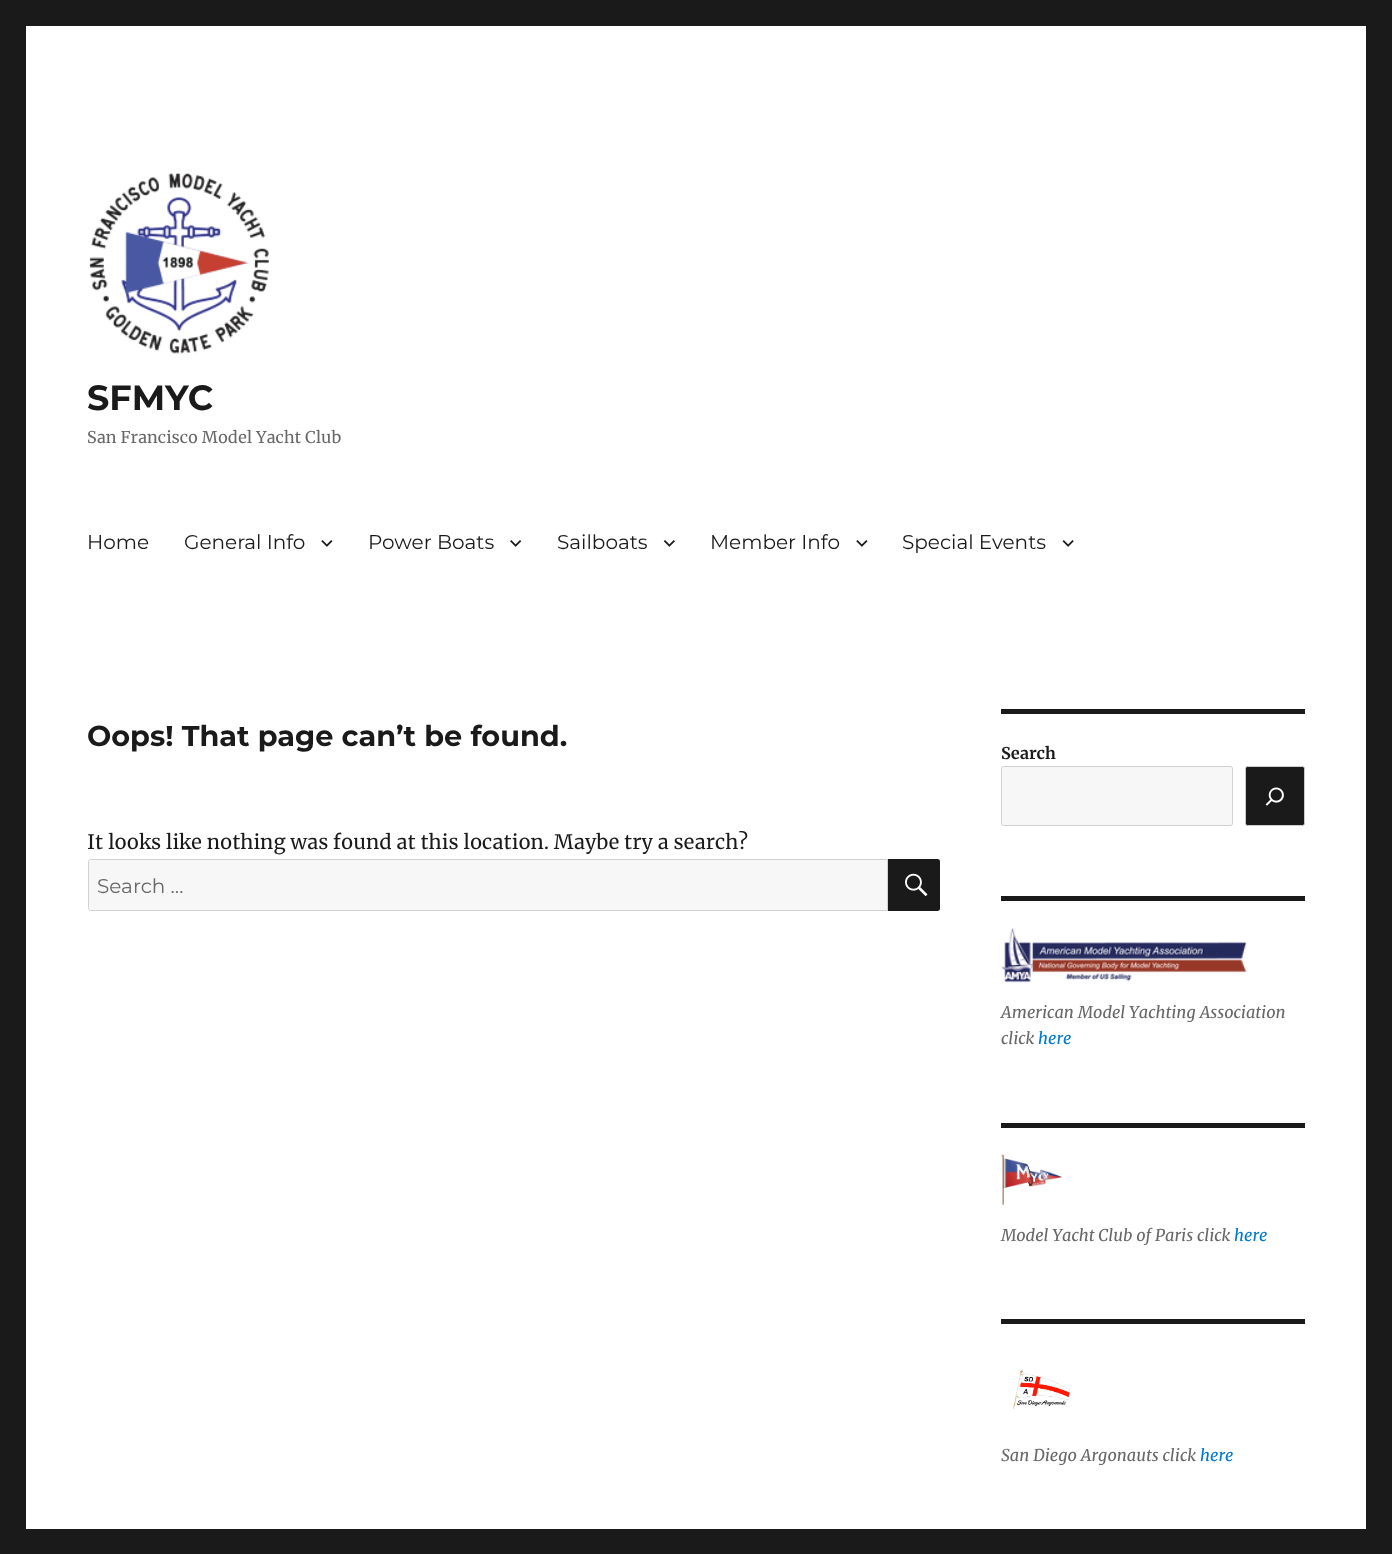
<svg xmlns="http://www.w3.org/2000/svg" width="1392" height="1554">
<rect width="100%" height="100%" fill="#1a1a1a"/>
<rect x="26" y="26" width="1340" height="1503" fill="#fff"/>
<image x="89" y="172" width="180" height="182" href="media/1.png"/>
<text x="87" y="410" style="font-family:Montserrat;font-size:35px;font-weight:100;fill:#1a1a1a">SFMYC</text>
<text x="87" y="443" style="font-family:Merriweather;font-size:16.25px;fill:#686868">San Francisco Model Yacht Club</text>
<text x="87" y="549" style="font-family:'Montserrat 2';font-size:20px;font-weight:100;fill:#1a1a1a">Home</text>
<text x="184" y="549" style="font-family:'Montserrat 2';font-size:20px;font-weight:100;fill:#1a1a1a">General Info</text>
<image x="321" y="540" width="12" height="7" href="media/2.png"/>
<text x="368" y="549" style="font-family:'Montserrat 2';font-size:20px;font-weight:100;fill:#1a1a1a">Power Boats</text>
<image x="510" y="540" width="12" height="7" href="media/3.png"/>
<text x="557" y="549" style="font-family:'Montserrat 2';font-size:20px;font-weight:100;fill:#1a1a1a">Sailboats</text>
<image x="663" y="540" width="12" height="7" href="media/4.png"/>
<text x="710" y="549" style="font-family:'Montserrat 2';font-size:20px;font-weight:100;fill:#1a1a1a">Member Info</text>
<image x="856" y="540" width="12" height="7" href="media/2.png"/>
<text x="902" y="549" style="font-family:'Montserrat 2';font-size:20px;font-weight:100;fill:#1a1a1a">Special Events</text>
<image x="1062" y="540" width="12" height="7" href="media/5.png"/>
<text x="87" y="746" style="font-family:Montserrat;font-size:28.75px;font-weight:100;fill:#1a1a1a">Oops! That page can’t be found.</text>
<text x="87" y="849" style="font-family:Merriweather;font-size:20px;fill:#1a1a1a">It looks like nothing was found at this location. Maybe try a search?</text>
<path d="M90.5 859.5h797v51h-797c-1 0-2-1-2-2v-47c0-1 1-2 2-2z" fill="#f7f7f7" stroke="#d1d1d1"/>
<text x="97" y="893" style="font-family:'Montserrat 2';font-size:20px;font-weight:100;fill:#686868">Search …</text>
<path d="M888 859h49.5c1.5 0 2.5 1 2.5 2.5v47c0 1.5-1 2.5-2.5 2.5h-49.5z" fill="#1a1a1a"/>
<image x="905" y="873" width="23" height="24" href="media/6.png"/>
<rect x="1001" y="709" width="304" height="5" fill="#1a1a1a"/>
<text x="1001" y="759" style="font-family:Merriweather;font-size:16.25px;font-weight:bold;fill:#1a1a1a">Search</text>
<rect x="1001.5" y="766.5" width="231" height="59" rx="2" fill="#f7f7f7" stroke="#d1d1d1"/>
<rect x="1245.5" y="766.5" width="59" height="59" rx="2" fill="#1a1a1a" stroke="#ccc"/>
<image x="1265" y="787" width="19" height="19" href="media/7.png"/>
<rect x="1001" y="896" width="304" height="5" fill="#1a1a1a"/>
<image x="1001" y="928" width="246" height="55" href="media/8.png"/>
<text x="1001" y="1018" style="font-family:Merriweather;font-size:16.25px;font-style:italic;fill:#686868">American Model Yachting Association</text>
<text x="1001" y="1044" style="font-family:Merriweather;font-size:16.25px;font-style:italic;fill:#686868">click</text>
<text x="1038" y="1044" style="font-family:Merriweather;font-size:16.25px;font-style:italic;fill:#007acc">here</text>
<rect x="1001" y="1123" width="304" height="5" fill="#1a1a1a"/>
<image x="1001" y="1154" width="62" height="51" href="media/9.png"/>
<text x="1001" y="1241" style="font-family:Merriweather;font-size:16.25px;font-style:italic;fill:#686868">Model Yacht Club of Paris click</text>
<text x="1234" y="1241" style="font-family:Merriweather;font-size:16.25px;font-style:italic;fill:#007acc">here</text>
<rect x="1001" y="1319" width="304" height="5" fill="#1a1a1a"/>
<image x="1013" y="1370" width="57" height="39" href="media/10.png"/>
<text x="1001" y="1461" style="font-family:Merriweather;font-size:16.25px;font-style:italic;fill:#686868">San Diego Argonauts click</text>
<text x="1200" y="1461" style="font-family:Merriweather;font-size:16.25px;font-style:italic;fill:#007acc">here</text>
</svg>
